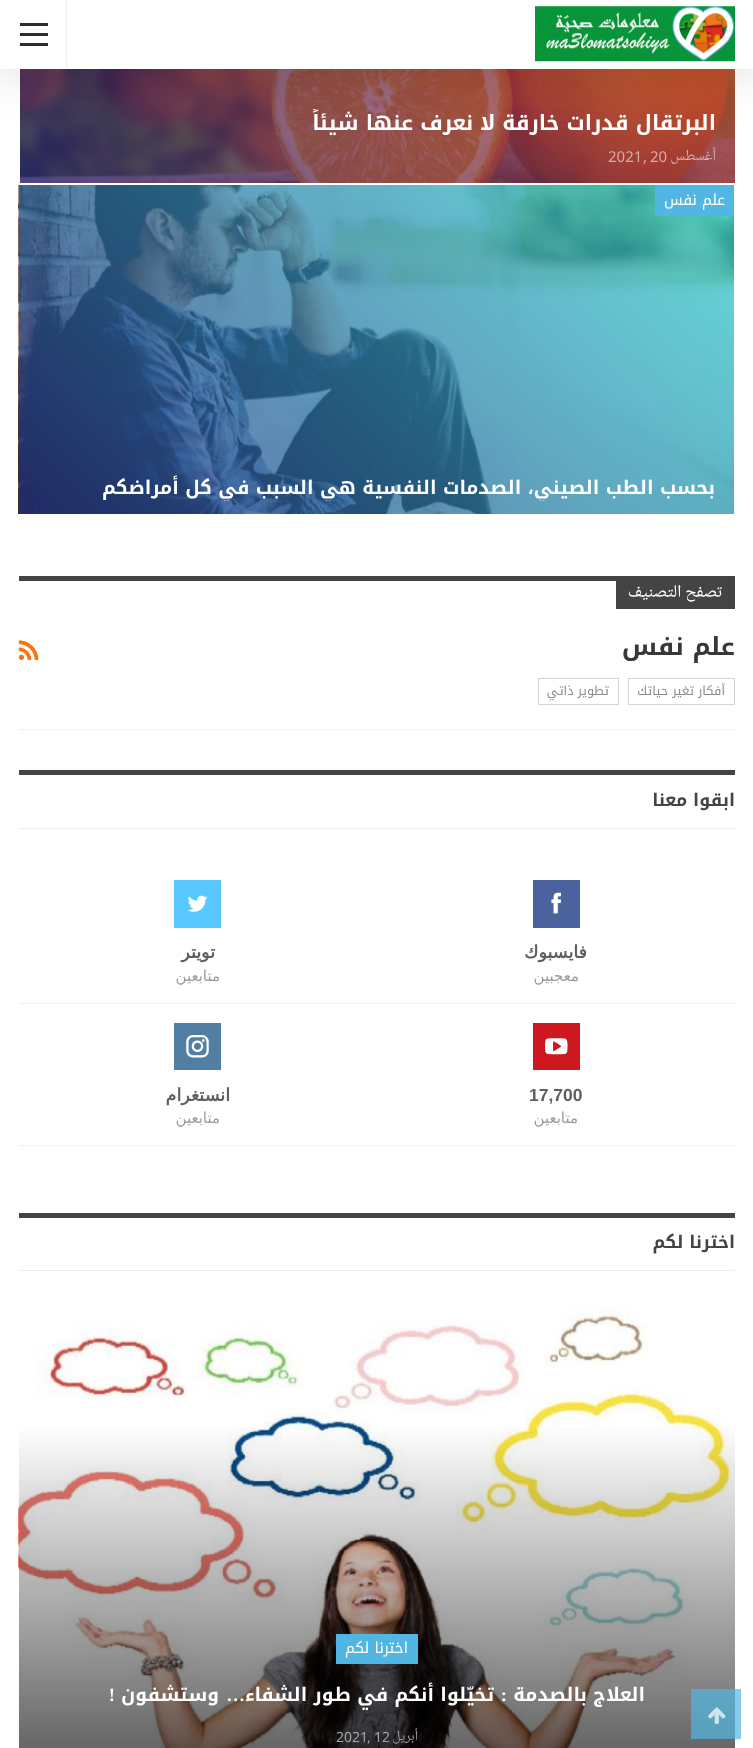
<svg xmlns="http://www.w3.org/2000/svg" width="753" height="1748">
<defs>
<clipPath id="clip1"><rect x="39" y="109" width="677" height="61"/></clipPath>
<clipPath id="clip2"><rect x="38" y="475" width="677" height="26"/></clipPath>
<clipPath id="clip3"><rect x="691" y="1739" width="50" height="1"/></clipPath>
</defs>
<rect width="100%" height="100%" fill="#fff"/>
<image x="20" y="69" width="715" height="114" href="media/2.png"/>
<rect width="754" height="69" fill="#0000002b" filter="blur(25px)"/>
<rect width="753" height="69" fill="#fff"/>
<image x="535" y="6" width="200" height="56" href="media/1.png"/>
<rect x="66" width="1" height="68" fill="#ededed"/>
<rect x="20" y="33" width="28" height="3" fill="#2c2c2c"/>
<rect x="20" y="23" width="28" height="3" fill="#2c2c2c"/>
<rect x="20" y="43" width="28" height="3" fill="#2c2c2c"/>
<g clip-path="url(#clip1)">
<text x="716" y="130" style="font-family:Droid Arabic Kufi;font-size:21px;font-weight:bold;direction:rtl;fill:#fff">البرتقال قدرات خارقة لا نعرف عنها شيئاً</text>
</g>
<text x="716" y="162" style="font-family:Noto Naskh Arabic UI;font-size:15px;direction:rtl;fill:#d7aca8">أغسطس</text>
<text x="650" y="162" style="font-family:Noto Naskh Arabic UI;font-size:15px;fill:#d7aca8">20</text>
<text x="643" y="162" style="font-family:Noto Naskh Arabic UI;font-size:15px;fill:#d7aca8">,</text>
<text x="608" y="162" style="font-family:Noto Naskh Arabic UI;font-size:15px;fill:#d7aca8">2021</text>
<image x="18" y="185" width="716" height="329" href="media/3.png"/>
<rect x="655" y="185" width="79" height="31" fill="#51b6e3"/>
<text x="725" y="205" style="font-family:Noto Kufi Arabic;font-size:15px;direction:rtl;fill:#fff">علم نفس</text>
<g clip-path="url(#clip2)">
<text x="715" y="494" style="font-family:Droid Arabic Kufi;font-size:18.9px;font-weight:bold;direction:rtl;fill:#fff">بحسب الطب الصيني، الصدمات النفسية هي السبب في كل أمراضكم</text>
</g>
<rect x="19" y="729" width="716" height="1" fill="#f0f0f0"/>
<rect x="19" y="576" width="597" height="5" fill="#444"/>
<rect x="616" y="576" width="119" height="33" fill="#444"/>
<text x="722" y="599" style="font-family:Noto Naskh Arabic UI;font-size:17.5px;direction:rtl;fill:#fff">تصفح التصنيف</text>
<text x="735" y="655" style="font-family:Droid Arabic Kufi;font-size:25px;font-weight:bold;direction:rtl;fill:#383838">علم نفس</text>
<image x="18" y="640" width="21" height="20" href="media/4.png"/>
<rect x="628.5" y="678.5" width="106" height="26" fill="none" stroke="#d4d4d4"/>
<text x="725" y="695" style="font-family:Noto Kufi Arabic;font-size:12.5px;direction:rtl;fill:#8b8b8b">أفكار تغير حياتك</text>
<rect x="538.5" y="678.5" width="80" height="26" fill="none" stroke="#d4d4d4"/>
<text x="609" y="695" style="font-family:Noto Kufi Arabic;font-size:12.5px;direction:rtl;fill:#8b8b8b">تطوير ذاتي</text>
<rect x="19" y="770" width="716" height="5" fill="#444"/>
<text x="735" y="806" style="font-family:Droid Arabic Kufi;font-size:17.5px;font-weight:bold;direction:rtl;fill:#444">ابقوا معنا</text>
<rect x="19" y="828" width="716" height="1" fill="#ededed"/>
<rect x="19" y="1003" width="716" height="1" fill="#f1f1f1"/>
<rect x="533" y="880" width="47" height="48" fill="#4a639f"/>
<image x="551" y="892" width="11" height="22" href="media/5.png"/>
<text x="587" y="958" style="font-family:DejaVu Sans;font-size:17.5px;font-weight:bold;direction:rtl;fill:#5f5f5f">فايسبوك</text>
<text x="579" y="981" style="font-family:DejaVu Sans;font-size:15px;direction:rtl;fill:#9d9d9d">معجبين</text>
<rect x="174" y="880" width="47" height="48" fill="#59c8ff"/>
<image x="188" y="895" width="20" height="17" href="media/6.png"/>
<text x="215" y="958" style="font-family:DejaVu Sans;font-size:17.5px;font-weight:bold;direction:rtl;fill:#5f5f5f">تويتر</text>
<text x="220" y="981" style="font-family:DejaVu Sans;font-size:15px;direction:rtl;fill:#9d9d9d">متابعين</text>
<rect x="19" y="1145" width="716" height="1" fill="#f1f1f1"/>
<rect x="533" y="1023" width="47" height="47" fill="#cc181e"/>
<image x="545" y="1038" width="23" height="17" href="media/7.png"/>
<text x="529" y="1101" style="font-family:Liberation Sans;font-size:17.5px;font-weight:bold;fill:#5f5f5f">17,700</text>
<text x="578" y="1123" style="font-family:DejaVu Sans;font-size:15px;direction:rtl;fill:#9d9d9d">متابعين</text>
<rect x="174" y="1023" width="47" height="47" fill="#517fa4"/>
<image x="186" y="1035" width="23" height="23" href="media/8.png"/>
<text x="230" y="1101" style="font-family:DejaVu Sans;font-size:17.5px;font-weight:bold;direction:rtl;fill:#5f5f5f">انستغرام</text>
<text x="220" y="1123" style="font-family:DejaVu Sans;font-size:15px;direction:rtl;fill:#9d9d9d">متابعين</text>
<rect x="19" y="1213" width="716" height="5" fill="#444"/>
<text x="735" y="1248" style="font-family:Droid Arabic Kufi;font-size:17.5px;font-weight:bold;direction:rtl;fill:#444">اخترنا لكم</text>
<rect x="19" y="1270" width="716" height="1" fill="#ededed"/>
<image x="18" y="1308" width="717" height="440" href="media/9.png"/>
<rect x="336" y="1634" width="82" height="30" fill="#51b6e3"/>
<text x="408" y="1653" style="font-family:Noto Kufi Arabic;font-size:15px;direction:rtl;fill:#fff">اخترنا لكم</text>
<text x="645" y="1701" style="font-family:Droid Arabic Kufi;font-size:18.75px;font-weight:bold;direction:rtl;fill:#fff">العلاج بالصدمة</text>
<text x="507" y="1701" style="font-family:Liberation Serif;font-size:18.75px;font-weight:bold;direction:rtl;fill:#fff">:</text>
<text x="494" y="1701" style="font-family:Droid Arabic Kufi;font-size:18.75px;font-weight:bold;direction:rtl;fill:#fff">تخيّلوا أنكم في طور الشفاء</text>
<text x="245" y="1701" style="font-family:Liberation Serif;font-size:18.75px;font-weight:bold;direction:rtl;fill:#fff">…</text>
<text x="219" y="1701" style="font-family:Droid Arabic Kufi;font-size:18.75px;font-weight:bold;direction:rtl;fill:#fff">وستشفون</text>
<text x="115" y="1701" style="font-family:Liberation Serif;font-size:18.75px;font-weight:bold;direction:rtl;fill:#fff">!</text>
<text x="418" y="1742" style="font-family:Noto Naskh Arabic UI;font-size:14px;direction:rtl;fill:#9d9d9d">أبريل</text>
<text x="374" y="1742" style="font-family:Noto Naskh Arabic UI;font-size:14px;fill:#a4a3a4">12</text>
<text x="367" y="1742" style="font-family:Noto Naskh Arabic UI;font-size:14px;fill:#a4a3a4">,</text>
<text x="336" y="1742" style="font-family:Noto Naskh Arabic UI;font-size:14px;fill:#a4a3a4">2021</text>
<g clip-path="url(#clip3)">
<rect x="691" y="1690" width="50" height="50" fill="#0000000f" filter="blur(1px)"/>
</g>
<rect x="691" y="1689" width="50" height="50" fill="#51b6e3b3"/>
<image x="708" y="1707" width="18" height="17" href="media/10.png"/>
</svg>
